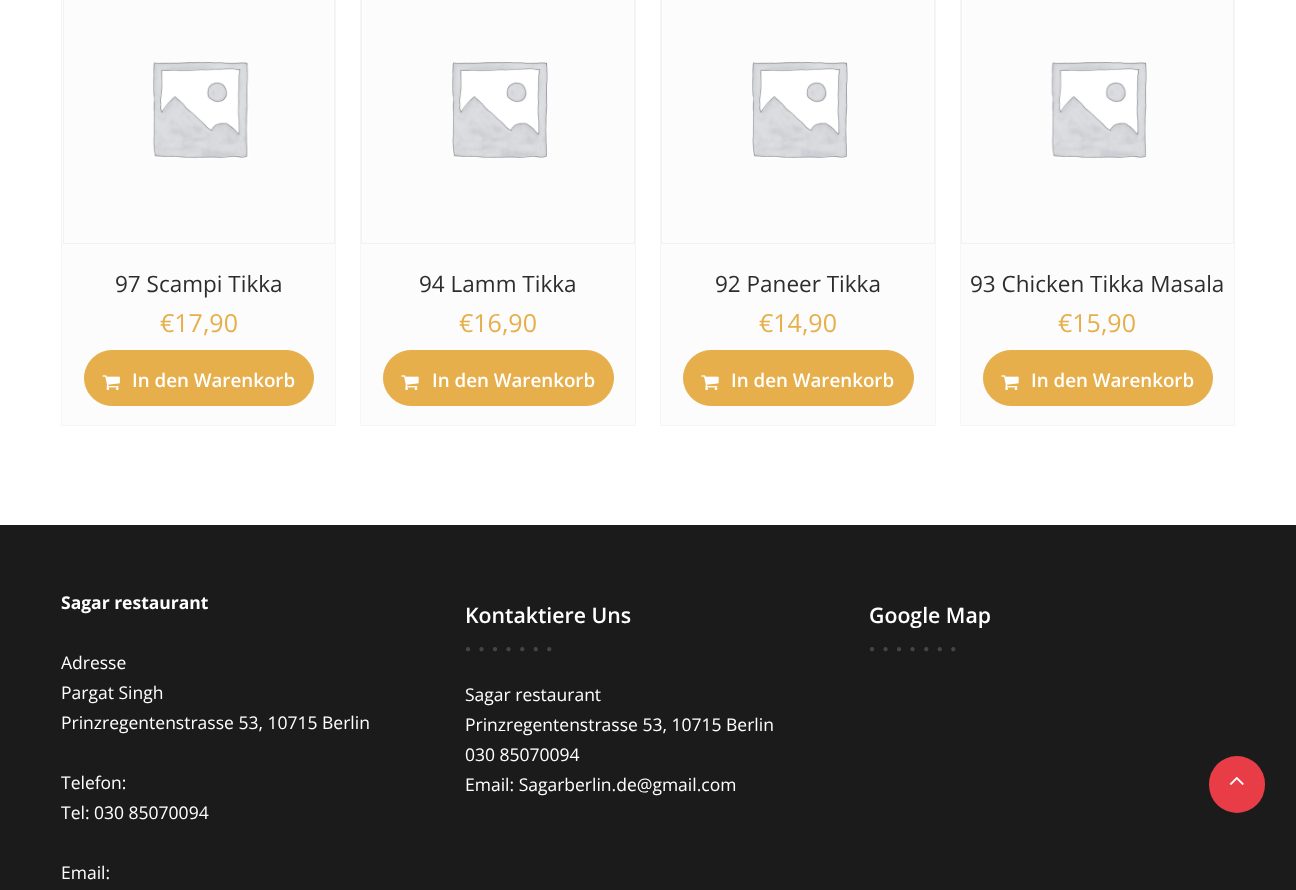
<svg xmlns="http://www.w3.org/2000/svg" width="1296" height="890">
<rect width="100%" height="100%" fill="#fff"/>
<rect x="61.5" y="-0.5" width="274" height="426" fill="#fcfcfc" stroke="#f5f5f5"/>
<rect x="63.5" y="-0.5" width="271" height="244" fill="none" stroke="#f2f2f2"/>
<image x="153" y="62" width="96" height="96" href="media/1.png"/>
<text x="115" y="292" style="font-family:Open Sans;font-size:22.5px;fill:#2d2d2d">97 Scampi Tikka</text>
<text x="160" y="332" style="font-family:Open Sans;font-size:25px;fill:#e6af4b">€17,90</text>
<rect x="84.5" y="350.5" width="229" height="55" rx="27.5" fill="#e6af4b" stroke="#e6af4b"/>
<image x="102" y="375" width="18" height="16" href="media/2.png"/>
<text x="132" y="387" style="font-family:Open Sans;font-size:18.75px;font-weight:600;fill:#fff">In den Warenkorb</text>
<rect x="360.5" y="-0.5" width="275" height="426" fill="#fcfcfc" stroke="#f5f5f5"/>
<rect x="361.5" y="-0.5" width="273" height="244" fill="none" stroke="#f2f2f2"/>
<image x="452" y="62" width="96" height="96" href="media/3.png"/>
<text x="419" y="292" style="font-family:Open Sans;font-size:22.5px;fill:#2d2d2d">94 Lamm Tikka</text>
<text x="459" y="332" style="font-family:Open Sans;font-size:25px;fill:#e6af4b">€16,90</text>
<rect x="383.5" y="350.5" width="230" height="55" rx="27.5" fill="#e6af4b" stroke="#e6af4b"/>
<image x="401" y="375" width="18" height="16" href="media/4.png"/>
<text x="432" y="387" style="font-family:Open Sans;font-size:18.75px;font-weight:600;fill:#fff">In den Warenkorb</text>
<rect x="660.5" y="-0.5" width="275" height="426" fill="#fcfcfc" stroke="#f5f5f5"/>
<rect x="661.5" y="-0.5" width="273" height="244" fill="none" stroke="#f2f2f2"/>
<image x="752" y="62" width="96" height="96" href="media/3.png"/>
<text x="715" y="292" style="font-family:Open Sans;font-size:22.5px;fill:#2d2d2d">92 Paneer Tikka</text>
<text x="759" y="332" style="font-family:Open Sans;font-size:25px;fill:#e6af4b">€14,90</text>
<rect x="683.5" y="350.5" width="230" height="55" rx="27.5" fill="#e6af4b" stroke="#e6af4b"/>
<image x="701" y="375" width="18" height="16" href="media/4.png"/>
<text x="731" y="387" style="font-family:Open Sans;font-size:18.75px;font-weight:600;fill:#fff">In den Warenkorb</text>
<rect x="960.5" y="-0.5" width="274" height="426" fill="#fcfcfc" stroke="#f5f5f5"/>
<rect x="961.5" y="-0.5" width="272" height="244" fill="none" stroke="#f2f2f2"/>
<image x="1051" y="62" width="96" height="96" href="media/5.png"/>
<text x="970" y="292" style="font-family:Open Sans;font-size:22.5px;fill:#2d2d2d">93 Chicken Tikka Masala</text>
<text x="1058" y="332" style="font-family:Open Sans;font-size:25px;fill:#e6af4b">€15,90</text>
<rect x="983.5" y="350.5" width="229" height="55" rx="27.5" fill="#e6af4b" stroke="#e6af4b"/>
<image x="1001" y="375" width="18" height="16" href="media/4.png"/>
<text x="1031" y="387" style="font-family:Open Sans;font-size:18.75px;font-weight:600;fill:#fff">In den Warenkorb</text>
<rect y="525" width="1296" height="365" fill="#1b1b1b"/>
<text x="61" y="609" style="font-family:Open Sans;font-size:17.5px;font-weight:bold;fill:#fff">Sagar restaurant</text>
<text x="61" y="669" style="font-family:Open Sans;font-size:17.5px;fill:#fff">Adresse</text>
<text x="61" y="699" style="font-family:Open Sans;font-size:17.5px;fill:#fff">Pargat Singh</text>
<text x="61" y="729" style="font-family:Open Sans;font-size:17.5px;fill:#fff">Prinzregentenstrasse 53, 10715 Berlin</text>
<text x="61" y="789" style="font-family:Open Sans;font-size:17.5px;fill:#fff">Telefon:</text>
<text x="61" y="819" style="font-family:Open Sans;font-size:17.5px;fill:#fff">Tel: 030 85070094</text>
<text x="61" y="879" style="font-family:Open Sans;font-size:17.5px;fill:#fff">Email:</text>
<text x="465" y="623" style="font-family:Open Sans;font-size:21.25px;font-weight:600;fill:#fff">Kontaktiere Uns</text>
<text x="465" y="652" style="font-family:Liberation Sans;font-size:10px;font-weight:bold;letter-spacing:7.5px;fill:#444">●●●●●●●</text>
<text x="465" y="701" style="font-family:Open Sans;font-size:17.5px;fill:#fff">Sagar restaurant</text>
<text x="465" y="731" style="font-family:Open Sans;font-size:17.5px;fill:#fff">Prinzregentenstrasse 53, 10715 Berlin</text>
<text x="465" y="761" style="font-family:Open Sans;font-size:17.5px;fill:#fff">030 85070094</text>
<text x="465" y="791" style="font-family:Open Sans;font-size:17.5px;fill:#fff">Email: Sagarberlin.de@gmail.com</text>
<text x="869" y="623" style="font-family:Open Sans;font-size:21.25px;font-weight:600;fill:#fff">Google Map</text>
<text x="869" y="652" style="font-family:Liberation Sans;font-size:10px;font-weight:bold;letter-spacing:7.5px;fill:#444">●●●●●●●</text>
<rect x="1209" y="756" width="56" height="57" rx="28" fill="#e83d47"/>
<image x="1229" y="776" width="15" height="9" href="media/6.png"/>
</svg>
